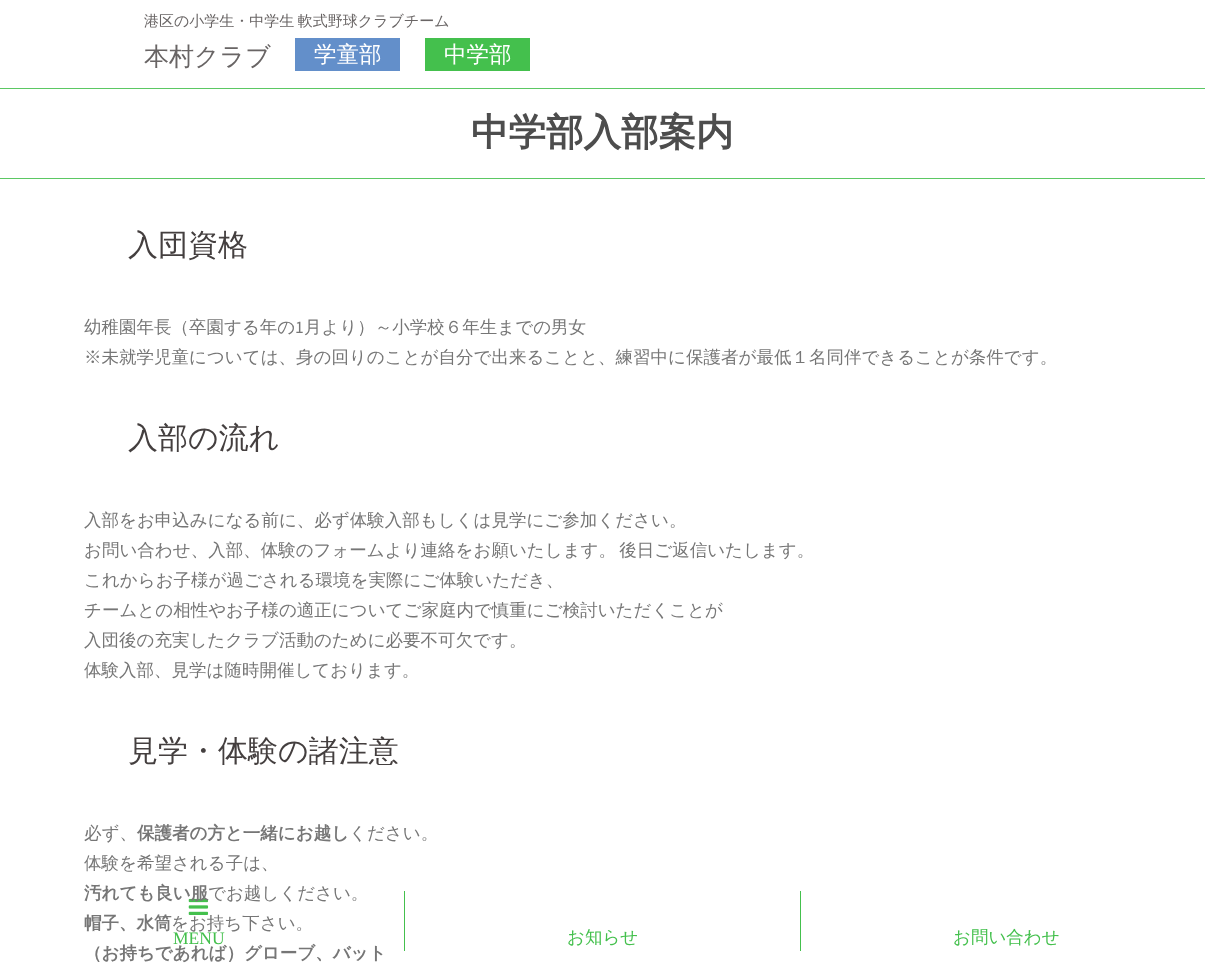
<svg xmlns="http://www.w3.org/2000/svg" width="1205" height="970">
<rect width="100%" height="100%" fill="#fff"/>
<text x="144" y="26" word-spacing="-1" style="font-family:WenQuanYi Zen Hei;font-size:15px;font-weight:500;fill:#696565">港区の小学生・中学生 軟式野球クラブチーム</text>
<text x="144" y="65" style="font-family:WenQuanYi Zen Hei;font-size:25px;font-weight:500;fill:#696565">本村クラブ</text>
<rect x="295" y="38" width="105" height="33" fill="#638fca"/>
<text x="314" y="62" style="font-family:WenQuanYi Zen Hei;font-size:22.5px;font-weight:500;fill:#fff">学童部</text>
<rect x="425" y="38" width="105" height="33" fill="#44c04d"/>
<text x="444" y="62" style="font-family:WenQuanYi Zen Hei;font-size:22.5px;font-weight:500;fill:#fff">中学部</text>
<image x="188" y="898" width="21" height="17" href="media/1.png"/>
<text x="173" y="944" style="font-family:Liberation Serif;font-size:17.5px;fill:#44c04d">MENU</text>
<rect x="800" y="891" width="1" height="60" fill="#44c04d"/>
<rect x="404" y="891" width="1" height="60" fill="#44c04d"/>
<text x="567" y="943" style="font-family:WenQuanYi Zen Hei;font-size:17.5px;font-weight:500;fill:#44c04d">お知らせ</text>
<text x="953" y="943" style="font-family:WenQuanYi Zen Hei;font-size:17.5px;font-weight:500;fill:#44c04d">お問い合わせ</text>
<rect y="88" width="1205" height="1" fill="#5bc863"/>
<rect y="178" width="1205" height="1" fill="#5bc863"/>
<text x="471" y="145" style="font-family:WenQuanYi Zen Hei;font-size:37.5px;font-weight:bold;fill:#4d4d4d">中学部入部案内</text>
<text x="128" y="255" style="font-family:WenQuanYi Zen Hei;font-size:30px;font-weight:500;fill:#443f3f">入団資格</text>
<text x="84" y="333" style="font-family:WenQuanYi Zen Hei;font-size:17.5px;font-weight:500;fill:#767676">幼稚園年長（卒園する年の</text>
<text x="295" y="333" style="font-family:Source Sans Pro;font-size:17.5px;fill:#767676">1</text>
<text x="304" y="333" style="font-family:WenQuanYi Zen Hei;font-size:17.5px;font-weight:500;fill:#767676">月より）～小学校６年生までの男女</text>
<text x="84" y="363" style="font-family:WenQuanYi Zen Hei;font-size:17.5px;font-weight:500;fill:#767676">※未就学児童については、身の回りのことが自分で出来ることと、練習中に保護者が最低１名同伴できることが条件です。</text>
<text x="128" y="448" style="font-family:WenQuanYi Zen Hei;font-size:30px;font-weight:500;fill:#443f3f">入部の流れ</text>
<text x="84" y="526" style="font-family:WenQuanYi Zen Hei;font-size:17.5px;font-weight:500;fill:#767676">入部をお申込みになる前に、必ず体験入部もしくは見学にご参加ください。</text>
<text x="84" y="556" word-spacing="-2" style="font-family:WenQuanYi Zen Hei;font-size:17.5px;font-weight:500;fill:#767676">お問い合わせ、入部、体験のフォームより連絡をお願いたします。 後日ご返信いたします。</text>
<text x="84" y="586" style="font-family:WenQuanYi Zen Hei;font-size:17.5px;font-weight:500;fill:#767676">これからお子様が過ごされる環境を実際にご体験いただき、</text>
<text x="84" y="616" style="font-family:WenQuanYi Zen Hei;font-size:17.5px;font-weight:500;fill:#767676">チームとの相性やお子様の適正についてご家庭内で慎重にご検討いただくことが</text>
<text x="84" y="646" style="font-family:WenQuanYi Zen Hei;font-size:17.5px;font-weight:500;fill:#767676">入団後の充実したクラブ活動のために必要不可欠です。</text>
<text x="84" y="676" style="font-family:WenQuanYi Zen Hei;font-size:17.5px;font-weight:500;fill:#767676">体験入部、見学は随時開催しております。</text>
<text x="128" y="761" style="font-family:WenQuanYi Zen Hei;font-size:30px;font-weight:500;fill:#443f3f">見学・体験の諸注意</text>
<text x="84" y="839" style="font-family:WenQuanYi Zen Hei;font-size:17.5px;font-weight:500;fill:#767676">必ず、</text>
<text x="137" y="839" style="font-family:WenQuanYi Zen Hei;font-size:17.5px;font-weight:bold;fill:#767676">保護者の方と一緒にお越し</text>
<text x="349" y="839" style="font-family:WenQuanYi Zen Hei;font-size:17.5px;font-weight:500;fill:#767676">ください。</text>
<text x="84" y="869" style="font-family:WenQuanYi Zen Hei;font-size:17.5px;font-weight:500;fill:#767676">体験を希望される子は、</text>
<text x="84" y="899" style="font-family:WenQuanYi Zen Hei;font-size:17.5px;font-weight:bold;fill:#767676">汚れても良い服</text>
<text x="208" y="899" style="font-family:WenQuanYi Zen Hei;font-size:17.5px;font-weight:500;fill:#767676">でお越しください。</text>
<text x="84" y="929" style="font-family:WenQuanYi Zen Hei;font-size:17.5px;font-weight:bold;fill:#767676">帽子、水筒</text>
<text x="171" y="929" style="font-family:WenQuanYi Zen Hei;font-size:17.5px;font-weight:500;fill:#767676">をお持ち下さい。</text>
<text x="84" y="959" style="font-family:WenQuanYi Zen Hei;font-size:17.5px;font-weight:bold;fill:#767676">（お持ちであれば）グローブ、バット</text>
</svg>
